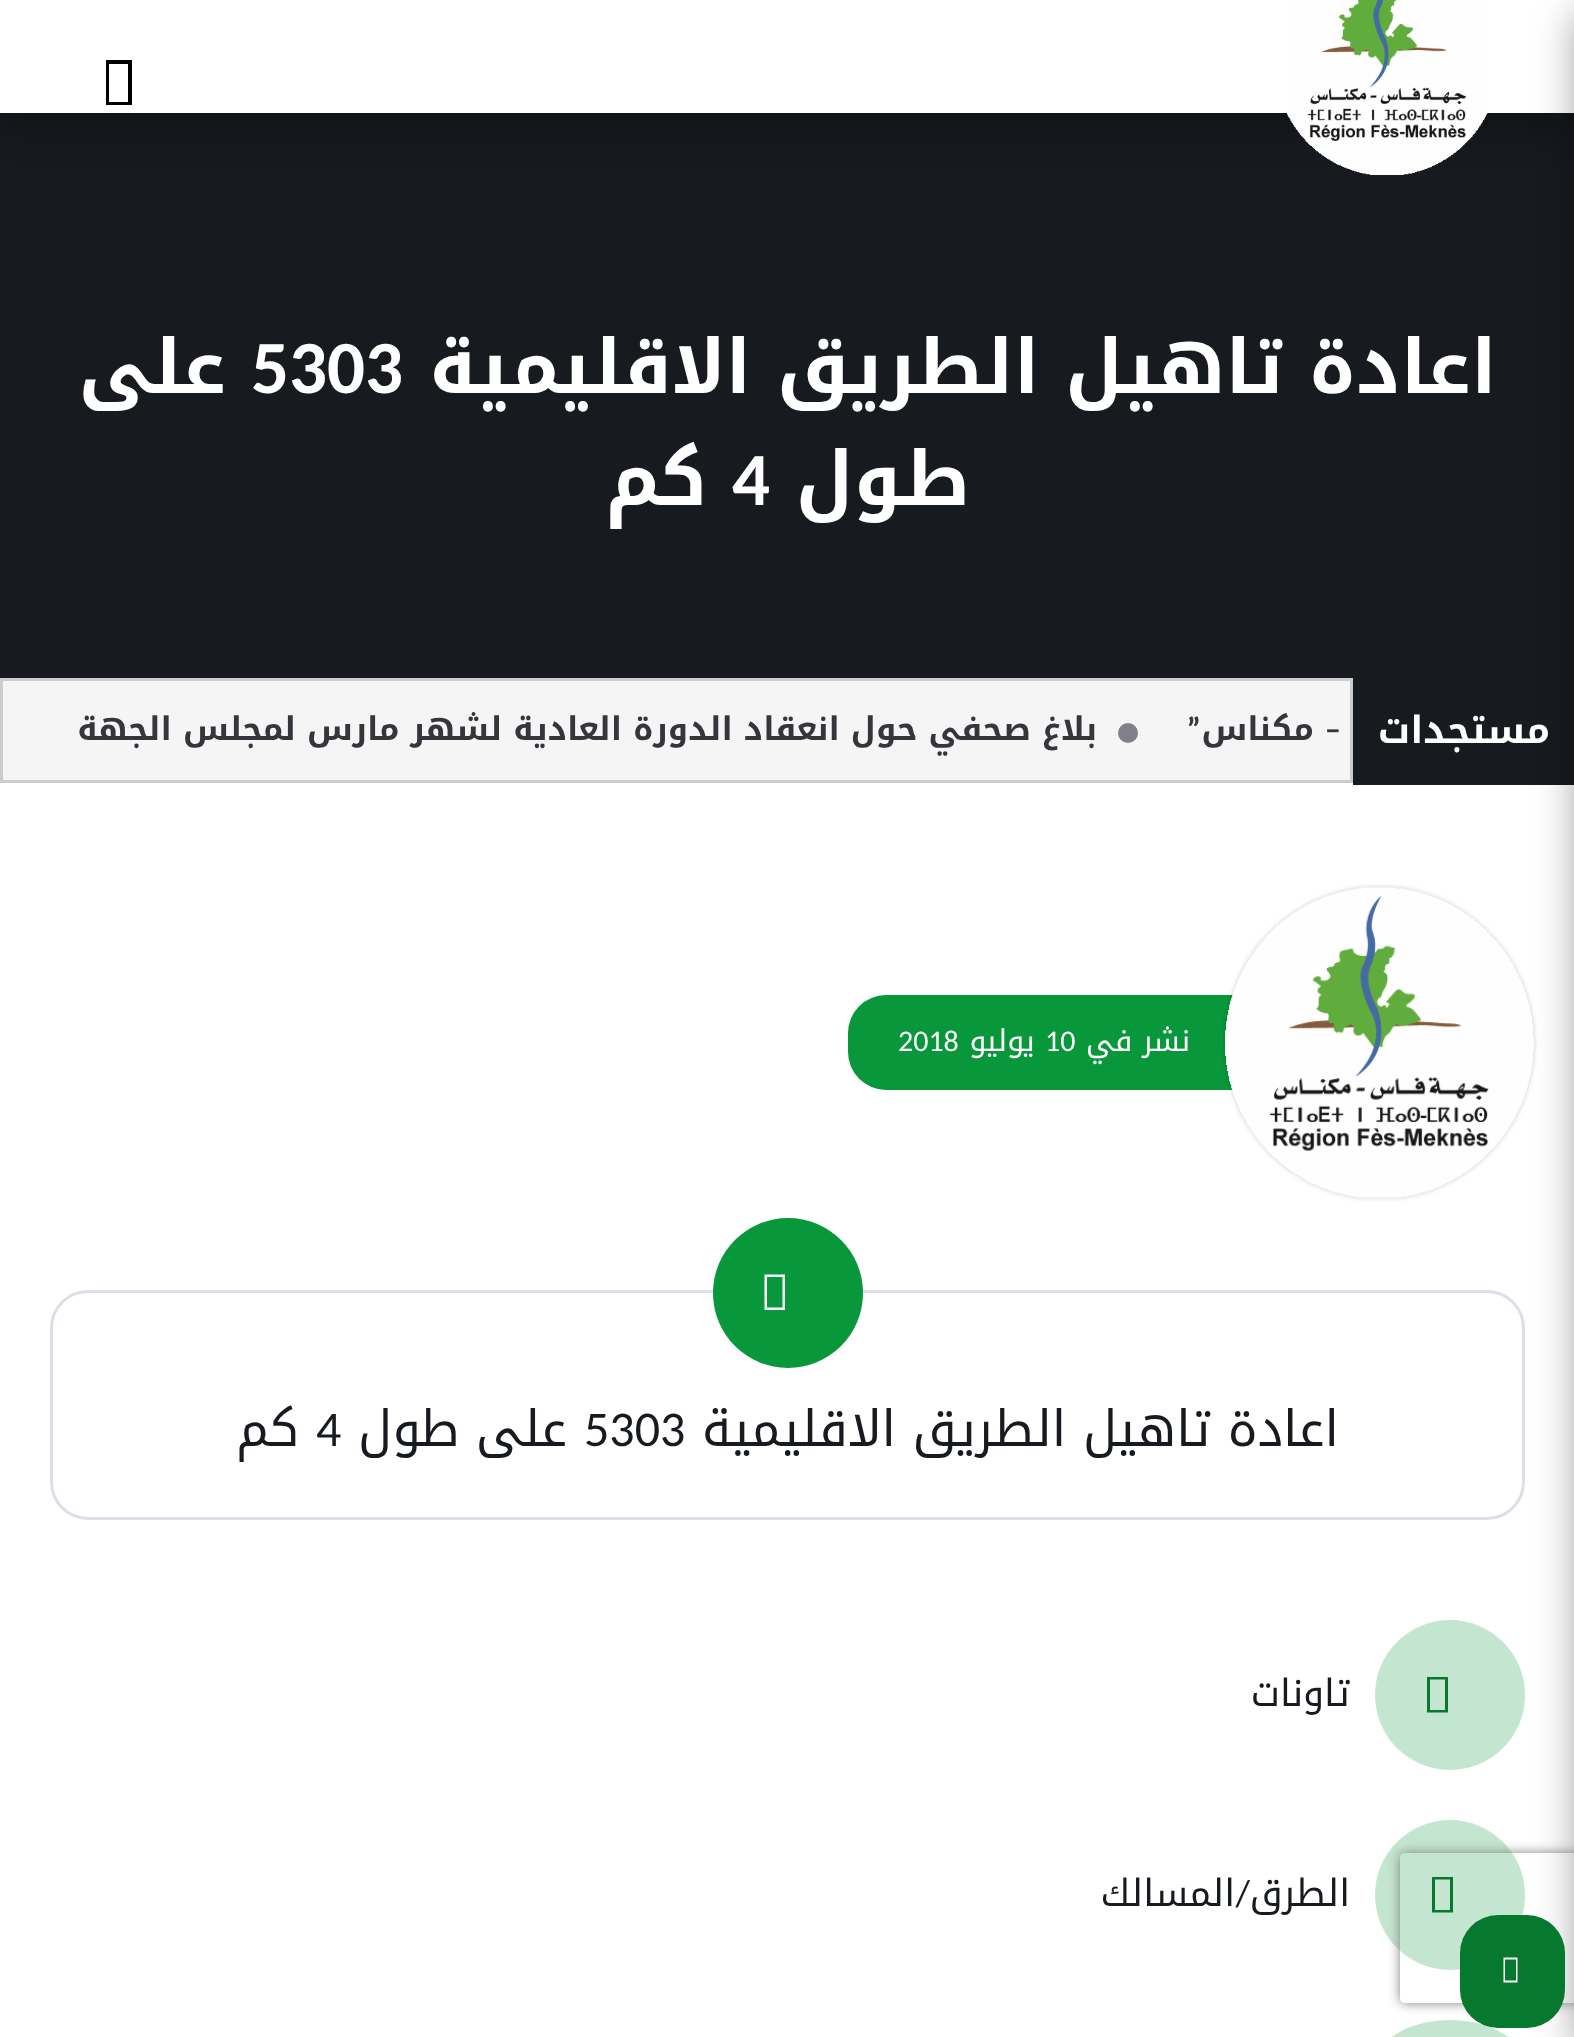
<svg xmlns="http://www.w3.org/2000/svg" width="1574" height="2037">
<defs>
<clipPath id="clip1"><path d="M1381 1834h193v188h-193zm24 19h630c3 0 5 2 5 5v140c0 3-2 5-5 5h-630c-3 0-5-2-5-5v-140c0-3 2-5 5-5z" clip-rule="evenodd"/></clipPath>
</defs>
<rect width="100%" height="100%" fill="#fff"/>
<rect y="113" width="1574" height="565" fill="#171a1f"/>
<rect y="13" width="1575" height="112" fill="#00000059" filter="blur(19px)"/>
<rect width="1574" height="113" fill="#fff"/>
<rect x="1353" y="678" width="221" height="107" fill="#171a1f"/>
<rect x="848" y="995" width="677" height="95" rx="38" fill="#09973b"/>
<image x="1222" y="884" width="315" height="317" href="media/2.png"/>
<rect x="51.5" y="1291.5" width="1472" height="227" rx="36.5" fill="none" stroke="#dcdfe7" stroke-width="3"/>
<circle cx="1450" cy="1695" r="75" fill="#c4e6d0"/>
<circle cx="1450" cy="1895" r="75" fill="#c4e6d0"/>
<rect x="1375" y="2020" width="150" height="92" rx="75" fill="#c4e6d0"/>
<rect x="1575" y="13" width="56" height="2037" fill="#00000059" filter="blur(19px)"/>
<image x="1287" y="0" width="201" height="175" href="media/1.png"/>
<path d="M106 105v-45h26v45zm3-3h19v-38h-19z" fill="#000"/>
<text x="1497" y="393" style="font-family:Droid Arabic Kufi;font-size:75px;font-weight:bold;direction:rtl;fill:#fff">اعادة تاهيل الطريق الاقليمية</text>
<text x="251" y="393" style="font-family:Carlito;font-size:75px;font-weight:bold;fill:#fff">5303</text>
<text x="226" y="393" style="font-family:Droid Arabic Kufi;font-size:75px;font-weight:bold;direction:rtl;fill:#fff">على</text>
<text x="970" y="505" style="font-family:Droid Arabic Kufi;font-size:75px;font-weight:bold;direction:rtl;fill:#fff">طول</text>
<text x="732" y="505" style="font-family:Carlito;font-size:75px;font-weight:bold;fill:#fff">4</text>
<text x="707" y="505" style="font-family:Droid Arabic Kufi;font-size:75px;font-weight:bold;direction:rtl;fill:#fff">كم</text>
<text x="1550" y="743" style="font-family:Droid Arabic Kufi;font-size:37.5px;font-weight:bold;direction:rtl;fill:#fff">مستجدات</text>
<rect x="1.5" y="679.5" width="1350" height="102" fill="#f5f5f5" stroke="#ccc" stroke-width="3"/>
<text x="1314" y="740" style="font-family:Droid Arabic Kufi;font-size:32.5px;font-weight:bold;direction:rtl;fill:#36353c">مكناس</text>
<text x="1201" y="740" style="font-family:Carlito;font-size:32.5px;font-weight:bold;direction:rtl;fill:#36353c">”</text>
<text x="1341" y="740" style="font-family:Carlito;font-size:32.5px;font-weight:bold;direction:rtl;fill:#36353c">–</text>
<circle cx="1128" cy="733" r="10" fill="#81808a"/>
<text x="1097" y="740" style="font-family:Droid Arabic Kufi;font-size:32.5px;font-weight:bold;direction:rtl;fill:#36353c">بلاغ صحفي حول انعقاد الدورة العادية لشهر مارس لمجلس الجهة</text>
<text x="1190" y="1051" style="font-family:Droid Arabic Kufi;font-size:30px;direction:rtl;fill:#fff">نشر في</text>
<text x="1045" y="1051" style="font-family:Carlito;font-size:30px;fill:#fff">10</text>
<text x="1035" y="1051" style="font-family:Droid Arabic Kufi;font-size:30px;direction:rtl;fill:#fff">يوليو</text>
<text x="898" y="1051" style="font-family:Carlito;font-size:30px;fill:#fff">2018</text>
<circle cx="788" cy="1293" r="75" fill="#09973b"/>
<path d="M764.5 1310v-35.5h20.5v35.5zm2.5-2.5h15.5v-30.5h-15.5z" fill="#fff"/>
<text x="1339" y="1446" style="font-family:Droid Arabic Kufi;font-size:50px;direction:rtl;fill:#171a1f">اعادة تاهيل الطريق الاقليمية</text>
<text x="584" y="1446" style="font-family:Carlito;font-size:50px;fill:#171a1f">5303</text>
<text x="567" y="1446" style="font-family:Droid Arabic Kufi;font-size:50px;direction:rtl;fill:#171a1f">على طول</text>
<text x="316" y="1446" style="font-family:Carlito;font-size:50px;fill:#171a1f">4</text>
<text x="299" y="1446" style="font-family:Droid Arabic Kufi;font-size:50px;direction:rtl;fill:#171a1f">كم</text>
<path d="M1427 1712.5v-35.5h21v35.5zm3-2.5h15v-30.5h-15z" fill="#07792f"/>
<text x="1350" y="1706" style="font-family:Droid Arabic Kufi;font-size:37.5px;direction:rtl;fill:#171a1f">تاونات</text>
<path d="M1432 1912.5v-35.5h21v35.5zm3-2.5h15v-30.5h-15z" fill="#07792f"/>
<text x="1350" y="1906" style="font-family:Droid Arabic Kufi;font-size:37.5px;direction:rtl;fill:#171a1f">الطرق</text>
<text x="1250" y="1906" style="font-family:Carlito;font-size:37.5px;direction:rtl;fill:#171a1f">/</text>
<text x="1235" y="1906" style="font-family:Droid Arabic Kufi;font-size:37.5px;direction:rtl;fill:#171a1f">المسالك</text>
<g clip-path="url(#clip1)">
<rect x="1400" y="1853" width="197" height="150" rx="5" fill="#808080" filter="blur(6px)"/>
</g>
<rect x="1460" y="1915" width="105" height="113" rx="38" fill="#07792f"/>
<path d="M1503.5 1982.5v-25h14v25zm1.5-2h11v-21h-11z" fill="#fff"/>
</svg>
